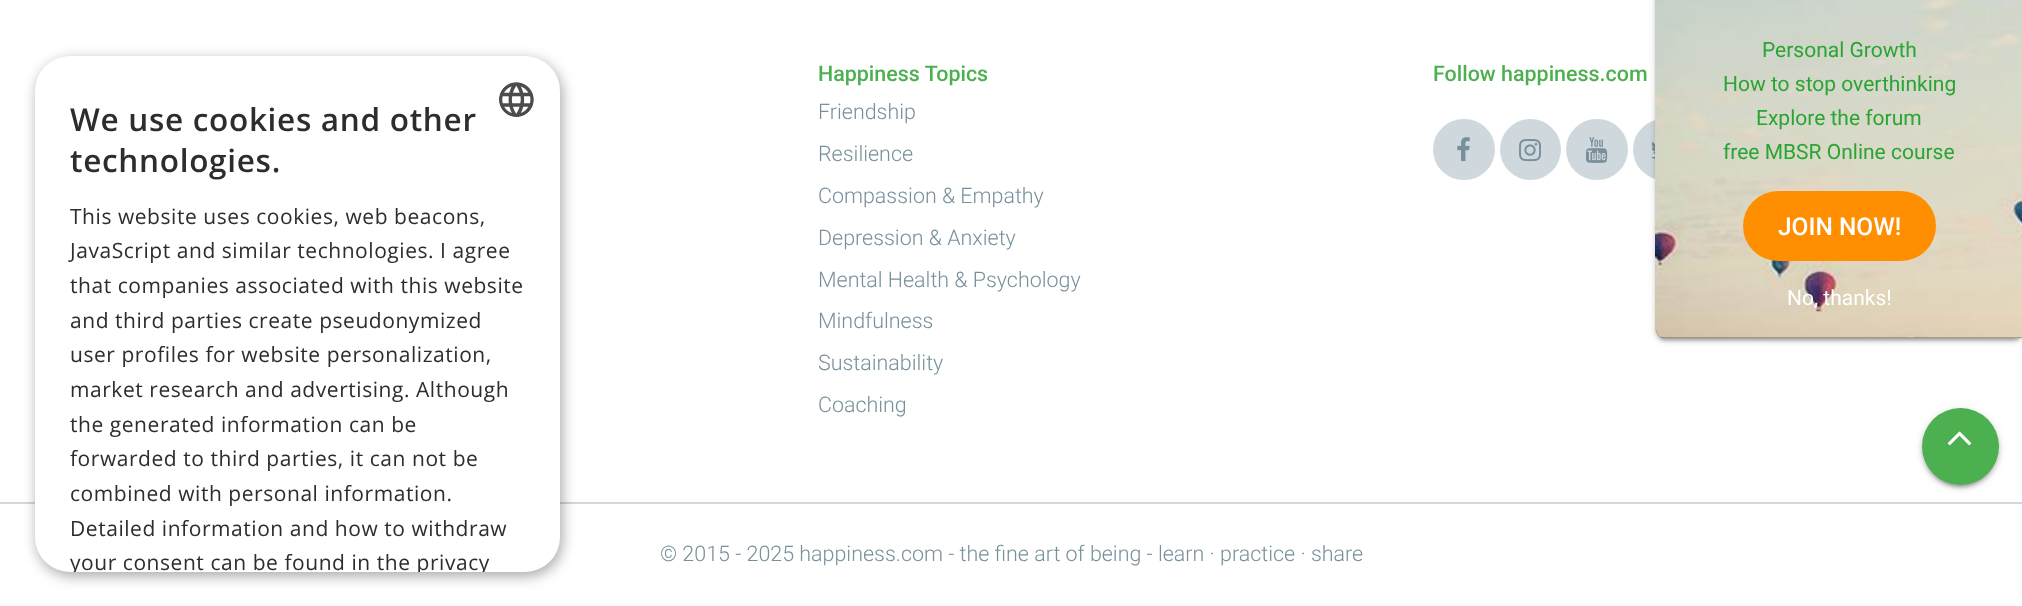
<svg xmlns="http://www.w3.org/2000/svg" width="2022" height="606">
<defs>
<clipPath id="clip1"><rect x="35" y="56" width="525" height="516" rx="35"/></clipPath>
</defs>
<rect width="100%" height="100%" fill="#fff"/>
<rect y="502" width="2022" height="2" fill="#cfd8dc"/>
<rect x="37" y="60" width="525" height="516" rx="35" fill="#00000059" filter="blur(7px)"/>
<rect x="35" y="56" width="525" height="516" rx="35" fill="#fff"/>
<image x="499" y="82" width="35" height="35" href="media/1.png"/>
<text x="70" y="131" style="font-family:Open Sans;font-size:31.5px;font-weight:600;letter-spacing:0.7px;fill:#2d2d2d">We use cookies and other</text>
<text x="70" y="172" style="font-family:Open Sans;font-size:31.5px;font-weight:600;letter-spacing:0.7px;fill:#2d2d2d">technologies.</text>
<text x="70" y="224" style="font-family:Open Sans;font-size:21px;letter-spacing:0.55px;fill:#2d2d2d">This website uses cookies, web beacons,</text>
<text x="70" y="258" style="font-family:Open Sans;font-size:21px;letter-spacing:0.55px;fill:#2d2d2d">JavaScript and similar technologies. I agree</text>
<text x="70" y="293" style="font-family:Open Sans;font-size:21px;letter-spacing:0.55px;fill:#2d2d2d">that companies associated with this website</text>
<text x="70" y="328" style="font-family:Open Sans;font-size:21px;letter-spacing:0.55px;fill:#2d2d2d">and third parties create pseudonymized</text>
<text x="70" y="362" style="font-family:Open Sans;font-size:21px;letter-spacing:0.55px;fill:#2d2d2d">user profiles for website personalization,</text>
<text x="70" y="397" style="font-family:Open Sans;font-size:21px;letter-spacing:0.55px;fill:#2d2d2d">market research and advertising. Although</text>
<text x="70" y="432" style="font-family:Open Sans;font-size:21px;letter-spacing:0.55px;fill:#2d2d2d">the generated information can be</text>
<text x="70" y="466" style="font-family:Open Sans;font-size:21px;letter-spacing:0.55px;fill:#2d2d2d">forwarded to third parties, it can not be</text>
<text x="70" y="501" style="font-family:Open Sans;font-size:21px;letter-spacing:0.55px;fill:#2d2d2d">combined with personal information.</text>
<text x="70" y="536" style="font-family:Open Sans;font-size:21px;letter-spacing:0.55px;fill:#2d2d2d">Detailed information and how to withdraw</text>
<g clip-path="url(#clip1)">
<text x="70" y="570" style="font-family:Open Sans;font-size:21px;letter-spacing:0.55px;fill:#2d2d2d">your consent can be found in the privacy</text>
</g>
<text x="818" y="81" style="font-family:Roboto;font-size:21.45px;font-weight:500;fill:#4caf50">Happiness Topics</text>
<text x="818" y="119" style="font-family:Roboto;font-size:21.45px;font-weight:300;fill:#78909c">Friendship</text>
<text x="818" y="161" style="font-family:Roboto;font-size:21.45px;font-weight:300;fill:#78909c">Resilience</text>
<text x="818" y="203" style="font-family:Roboto;font-size:21.45px;font-weight:300;fill:#78909c">Compassion &amp; Empathy</text>
<text x="818" y="245" style="font-family:Roboto;font-size:21.45px;font-weight:300;fill:#78909c">Depression &amp; Anxiety</text>
<text x="818" y="287" style="font-family:Roboto;font-size:21.45px;font-weight:300;fill:#78909c">Mental Health &amp; Psychology</text>
<text x="818" y="328" style="font-family:Roboto;font-size:21.45px;font-weight:300;fill:#78909c">Mindfulness</text>
<text x="818" y="370" style="font-family:Roboto;font-size:21.45px;font-weight:300;fill:#78909c">Sustainability</text>
<text x="818" y="412" style="font-family:Roboto;font-size:21.45px;font-weight:300;fill:#78909c">Coaching</text>
<text x="1433" y="81" style="font-family:Roboto;font-size:21.45px;font-weight:500;fill:#4caf50">Follow happiness.com</text>
<rect x="1433" y="119" width="62" height="61" rx="30.5" fill="#cfd8dc"/>
<image x="1457" y="137" width="13" height="25" href="media/2.png"/>
<circle cx="1530.5" cy="149.5" r="30.5" fill="#cfd8dc"/>
<image x="1519" y="139" width="22" height="23" href="media/3.png"/>
<rect x="1566" y="119" width="62" height="61" rx="30.5" fill="#cfd8dc"/>
<image x="1585" y="137" width="23" height="26" href="media/4.png"/>
<circle cx="1663.5" cy="149.5" r="30.5" fill="#cfd8dc"/>
<image x="1651" y="141" width="4" height="18" href="media/5.png"/>
<text x="660" y="561" style="font-family:Roboto;font-size:21.45px;font-weight:300;fill:#78909c">© 2015 - 2025 happiness.com - the fine art of being - learn · practice · share</text>
<rect x="1656" y="-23" width="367" height="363" rx="9" fill="#0000001f" filter="blur(4.5px)"/>
<rect x="1659" y="-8" width="361" height="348" rx="5" fill="#00000024" filter="blur(1px)"/>
<rect x="1656" y="-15" width="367" height="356" rx="9" fill="#00000033" filter="blur(2px)"/>
<path d="M1665-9h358v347h-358c-5 0-9-4-9-9v-329c0-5 4-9 9-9z" fill="#000"/>
<image x="1655" y="0" width="367" height="338" href="media/6.png"/>
<text x="1762" y="57" style="font-family:Roboto;font-size:21px;fill:#2aa432">Personal Growth</text>
<text x="1723" y="91" style="font-family:Roboto;font-size:21px;fill:#2aa432">How to stop overthinking</text>
<text x="1756" y="125" style="font-family:Roboto;font-size:21px;fill:#2aa432">Explore the forum</text>
<text x="1723" y="159" style="font-family:Roboto;font-size:21px;fill:#2aa432">free MBSR Online course</text>
<rect x="1743" y="191" width="193" height="70" rx="35" fill="#ff8f00"/>
<text x="1778" y="235" style="font-family:Roboto;font-size:24.5px;font-weight:500;fill:#fff">JOIN NOW!</text>
<text x="1787" y="305" style="font-family:Roboto;font-size:21px;fill:#fff">No, thanks!</text>
<rect x="1922" y="410" width="77" height="77" rx="38.5" fill="#0000001f" filter="blur(4.5px)"/>
<rect x="1925" y="417" width="70" height="70" rx="35" fill="#00000024" filter="blur(1px)"/>
<rect x="1922" y="411" width="77" height="77" rx="38.5" fill="#00000033" filter="blur(2px)"/>
<circle cx="1960.5" cy="446.5" r="38.5" fill="#4caf50"/>
<image x="1947" y="431" width="25" height="15" href="media/7.png"/>
</svg>
